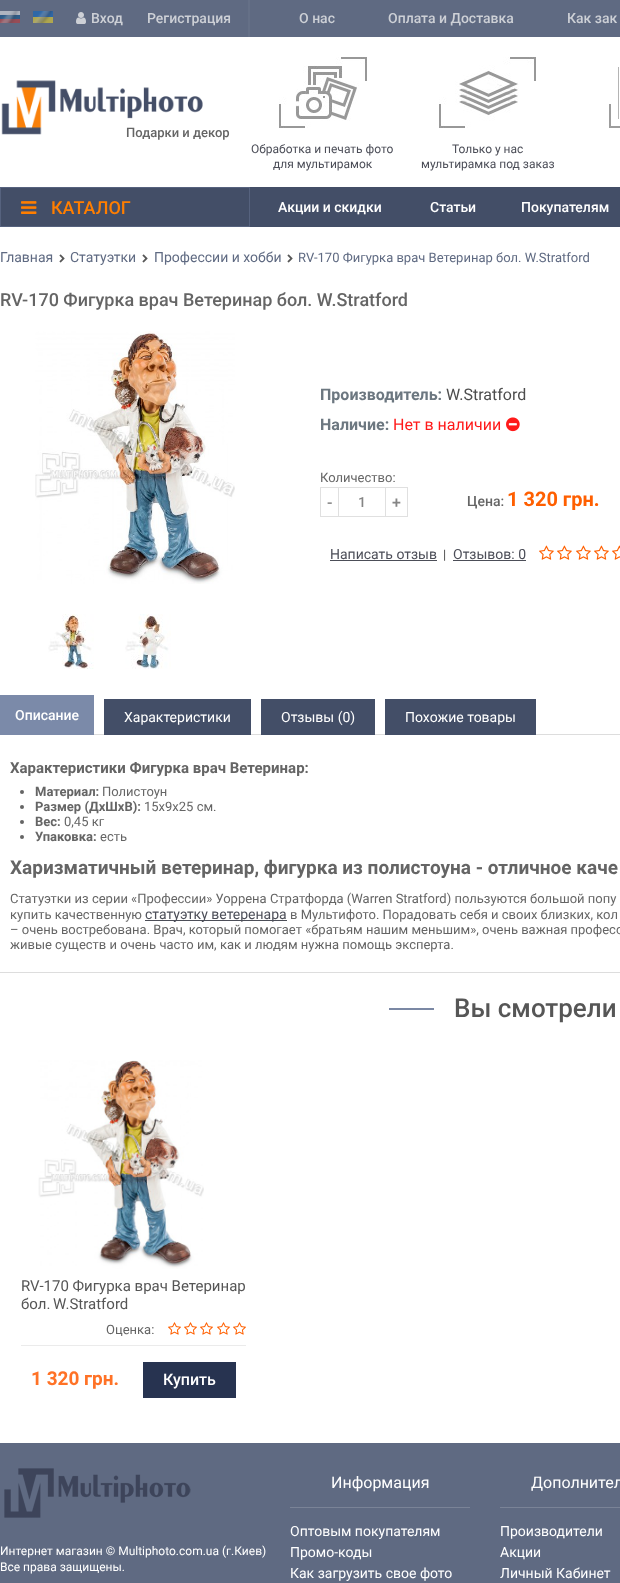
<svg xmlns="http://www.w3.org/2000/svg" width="620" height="1583">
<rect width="100%" height="100%" fill="#fff"/>
<rect width="620" height="37" fill="#5f6a82"/>
<rect x="248" width="2" height="37" fill="#657087"/>
<image x="0" y="11" width="20" height="12" href="media/1.png"/>
<image x="33" y="11" width="20" height="12" href="media/2.png"/>
<image x="76" y="12" width="10" height="12" href="media/3.png"/>
<text x="91" y="23" style="font-family:Roboto;font-size:14px;font-weight:500;fill:#cdd0d6">Вход</text>
<text x="147" y="23" style="font-family:Roboto;font-size:14px;font-weight:500;fill:#cdd0d6">Регистрация</text>
<text x="299" y="23" style="font-family:Roboto;font-size:14px;font-weight:500;fill:#cdd0d6">О нас</text>
<text x="388" y="23" style="font-family:Roboto;font-size:14px;font-weight:500;fill:#cdd0d6">Оплата и Доставка</text>
<text x="567" y="23" style="font-family:Roboto;font-size:14px;font-weight:500;fill:#cdd0d6">Как зак</text>
<image x="1" y="80" width="202" height="55" href="media/4.png"/>
<text x="126" y="137" style="font-family:Roboto;font-size:13px;font-weight:500;fill:#656565">Подарки и декор</text>
<image x="609" y="67" width="11" height="61" href="media/5.png"/>
<image x="279" y="57" width="88" height="71" href="media/6.png"/>
<text x="251" y="153" style="font-family:Roboto;font-size:12px;fill:#4c4e58">Обработка и печать фото</text>
<text x="273" y="168" style="font-family:Roboto;font-size:12px;fill:#4c4e58">для мультирамок</text>
<image x="439" y="57" width="97" height="71" href="media/7.png"/>
<text x="452" y="153" style="font-family:Roboto;font-size:12px;fill:#4c4e58">Только у нас</text>
<text x="421" y="168" style="font-family:Roboto;font-size:12px;fill:#4c4e58">мультирамка под заказ</text>
<rect x="1" y="187" width="619" height="40" fill="#434e67"/>
<rect x="0.5" y="187.5" width="249" height="39" fill="none" stroke="#56627e"/>
<image x="21" y="201" width="16" height="13" href="media/8.png"/>
<text x="51" y="214" style="font-family:Roboto;font-size:18px;font-weight:500;fill:#ff7e00">КАТАЛОГ</text>
<text x="278" y="212" style="font-family:Roboto;font-size:14px;font-weight:500;fill:#fff">Акции и скидки</text>
<text x="430" y="212" style="font-family:Roboto;font-size:14px;font-weight:500;fill:#fff">Статьи</text>
<text x="521" y="212" style="font-family:Roboto;font-size:14px;font-weight:500;fill:#fff">Покупателям</text>
<text x="0" y="262" style="font-family:Roboto;font-size:14px;fill:#5f6a82">Главная</text>
<image x="59" y="254" width="6" height="9" href="media/9.png"/>
<text x="70" y="262" style="font-family:Roboto;font-size:14px;fill:#5f6a82">Статуэтки</text>
<image x="142" y="254" width="6" height="9" href="media/9.png"/>
<text x="154" y="262" style="font-family:Roboto;font-size:14px;fill:#5f6a82">Профессии и хобби</text>
<image x="287" y="254" width="6" height="9" href="media/9.png"/>
<text x="298" y="262" style="font-family:Roboto;font-size:13px;fill:#5f6a82">RV-170 Фигурка врач Ветеринар бол. W.Stratford</text>
<text x="0" y="306" style="font-family:Roboto;font-size:18px;font-weight:500;fill:#656565">RV-170 Фигурка врач Ветеринар бол. W.Stratford</text>
<image x="35" y="331" width="200" height="253" href="media/10.png"/>
<image x="48" y="614" width="46" height="55" href="media/11.png"/>
<image x="125" y="614" width="46" height="55" href="media/12.png"/>
<text x="320" y="400" style="font-family:Roboto;font-size:16px;font-weight:bold;fill:#6c7780">Производитель:</text>
<text x="446" y="400" style="font-family:Roboto;font-size:16px;fill:#4d4d4d">W.Stratford</text>
<text x="320" y="430" style="font-family:Roboto;font-size:16px;font-weight:bold;fill:#6c7780">Наличие:</text>
<text x="393" y="430" style="font-family:Roboto;font-size:16px;fill:#ff1a1a">Нет в наличии</text>
<image x="506" y="417" width="14" height="15" href="media/13.png"/>
<text x="320" y="482" style="font-family:Roboto;font-size:13px;fill:#656565">Количество:</text>
<rect x="320.5" y="487.5" width="18" height="29" fill="none" stroke="#e0e0e0"/>
<text x="327" y="508" style="font-family:Roboto;font-size:16px;font-weight:500;fill:#858585">-</text>
<rect x="338.5" y="487.5" width="47" height="29" fill="none" stroke="#e0e0e0"/>
<text x="358" y="507" style="font-family:Roboto;font-size:14px;font-weight:500;fill:#858585">1</text>
<rect x="385.5" y="487.5" width="22" height="29" fill="none" stroke="#e0e0e0"/>
<text x="392" y="508" style="font-family:Roboto;font-size:16px;font-weight:500;fill:#858585">+</text>
<text x="467" y="506" style="font-family:Roboto;font-size:14px;font-weight:500;fill:#656565">Цена:</text>
<text x="507" y="506" style="font-family:Roboto;font-size:20px;font-weight:bold;fill:#ff5f00">1 320 грн.</text>
<text x="330" y="559" style="font-family:Roboto;font-size:14px;fill:#4c4e58">Написать отзыв</text>
<rect x="330" y="560" width="107" height="1" fill="#4c4e58"/>
<text x="443" y="559" style="font-family:Roboto;font-size:13px;fill:#4d4d4d">|</text>
<text x="453" y="559" style="font-family:Roboto;font-size:14px;fill:#4c4e58">Отзывов: 0</text>
<rect x="453" y="560" width="73" height="1" fill="#4c4e58"/>
<image x="539" y="545" width="15" height="15" href="media/14.png"/>
<image x="557" y="545" width="15" height="15" href="media/14.png"/>
<image x="576" y="545" width="15" height="15" href="media/14.png"/>
<image x="594" y="545" width="15" height="15" href="media/14.png"/>
<image x="612" y="545" width="8" height="15" href="media/15.png"/>
<rect x="94" y="734" width="526" height="1" fill="#ddd"/>
<rect y="695" width="94" height="40" fill="#7b8aa9"/>
<text x="15" y="720" style="font-family:Roboto;font-size:14px;font-weight:500;fill:#fff">Описание</text>
<rect x="104" y="699" width="147" height="36" fill="#434e67"/>
<text x="124" y="722" style="font-family:Roboto;font-size:14px;fill:#fff">Характеристики</text>
<rect x="261" y="699" width="114" height="36" fill="#434e67"/>
<text x="281" y="722" style="font-family:Roboto;font-size:14px;fill:#fff">Отзывы (0)</text>
<rect x="385" y="699" width="151" height="36" fill="#434e67"/>
<text x="405" y="722" style="font-family:Roboto;font-size:14px;fill:#fff">Похожие товары</text>
<rect y="972" width="620" height="1" fill="#ddd"/>
<text x="10" y="773" style="font-family:Roboto;font-size:15px;font-weight:bold;fill:#656565">Характеристики Фигурка врач Ветеринар:</text>
<circle cx="22" cy="792" r="2" fill="#656565"/>
<text x="35" y="796" style="font-family:Roboto;font-size:13px;font-weight:bold;fill:#656565">Материал:</text>
<text x="102" y="796" style="font-family:Roboto;font-size:13px;fill:#656565">Полистоун</text>
<circle cx="22" cy="807" r="2" fill="#656565"/>
<text x="35" y="811" style="font-family:Roboto;font-size:13px;font-weight:bold;fill:#656565">Размер (ДхШхВ):</text>
<text x="144" y="811" style="font-family:Roboto;font-size:13px;fill:#656565">15х9х25 см.</text>
<circle cx="22" cy="822" r="2" fill="#656565"/>
<text x="35" y="826" style="font-family:Roboto;font-size:13px;font-weight:bold;fill:#656565">Вес:</text>
<text x="64" y="826" style="font-family:Roboto;font-size:13px;fill:#656565">0,45 кг</text>
<circle cx="22" cy="837" r="2" fill="#656565"/>
<text x="35" y="841" style="font-family:Roboto;font-size:13px;font-weight:bold;fill:#656565">Упаковка:</text>
<text x="100" y="841" style="font-family:Roboto;font-size:13px;fill:#656565">есть</text>
<text x="10" y="874" style="font-family:Roboto;font-size:19px;font-weight:bold;fill:#656565">Харизматичный ветеринар, фигурка из полистоуна - отличное каче</text>
<text x="10" y="903" style="font-family:Roboto;font-size:13px;fill:#656565">Статуэтки из серии «Профессии» Уоррена Стратфорда (Warren Stratford) пользуются большой попу</text>
<text x="10" y="919" style="font-family:Roboto;font-size:13px;fill:#656565">купить качественную</text>
<rect x="145" y="920" width="142" height="1" fill="#4c4e58"/>
<text x="145" y="919" style="font-family:Roboto;font-size:14px;fill:#4c4e58">статуэтку ветеренара</text>
<text x="290" y="919" style="font-family:Roboto;font-size:13px;fill:#656565">в Мультифото. Порадовать себя и своих близких, кол</text>
<text x="10" y="934" style="font-family:Roboto;font-size:13px;fill:#656565">– очень востребована. Врач, который помогает «братьям нашим меньшим», очень важная професс</text>
<text x="10" y="949" style="font-family:Roboto;font-size:13px;fill:#656565">живые существ и очень часто им, как и людям нужна помощь эксперта.</text>
<rect x="389" y="1008" width="45" height="2" fill="#7b88a4"/>
<text x="454" y="1017" style="font-family:Roboto;font-size:26px;font-weight:500;fill:#565656">Вы смотрели</text>
<image x="38" y="1060" width="166" height="209" href="media/16.png"/>
<text x="21" y="1291" style="font-family:Roboto;font-size:15px;fill:#565656">RV-170 Фигурка врач Ветеринар</text>
<text x="21" y="1309" word-spacing="-1" style="font-family:Roboto;font-size:15px;fill:#565656">бол. W.Stratford</text>
<text x="106" y="1334" style="font-family:Roboto;font-size:13px;fill:#656565">Оценка:</text>
<image x="168" y="1322" width="13" height="13" href="media/17.png"/>
<image x="184" y="1322" width="13" height="13" href="media/17.png"/>
<image x="200" y="1322" width="13" height="13" href="media/17.png"/>
<image x="217" y="1322" width="13" height="13" href="media/17.png"/>
<image x="233" y="1322" width="13" height="13" href="media/17.png"/>
<rect x="21" y="1345" width="225" height="1" fill="#ebebeb"/>
<text x="31" y="1385" style="font-family:Roboto;font-size:19px;font-weight:bold;fill:#ff7226">1 320 грн.</text>
<rect x="143" y="1362" width="93" height="36" fill="#273350"/>
<text x="163" y="1385" style="font-family:Roboto;font-size:16px;font-weight:500;fill:#fff">Купить</text>
<rect y="1443" width="620" height="140" fill="#5f6a82"/>
<image x="4" y="1468" width="187" height="50" href="media/18.png"/>
<text x="0" y="1555" style="font-family:Roboto;font-size:12px;fill:#fff">Интернет магазин © Multiphoto.com.ua (г.Киев)</text>
<text x="0" y="1571" style="font-family:Roboto;font-size:12px;fill:#fff">Все права защищены.</text>
<rect x="290" y="1507" width="180" height="1" fill="#7a8397"/>
<text x="331" y="1488" style="font-family:Roboto;font-size:16px;fill:#fff">Информация</text>
<text x="290" y="1536" style="font-family:Roboto;font-size:14px;fill:#fff">Оптовым покупателям</text>
<text x="290" y="1557" style="font-family:Roboto;font-size:14px;fill:#fff">Промо-коды</text>
<text x="290" y="1578" style="font-family:Roboto;font-size:14px;fill:#fff">Как загрузить свое фото</text>
<rect x="500" y="1507" width="120" height="1" fill="#7a8397"/>
<text x="531" y="1488" style="font-family:Roboto;font-size:16px;fill:#fff">Дополнител</text>
<text x="500" y="1536" style="font-family:Roboto;font-size:14px;fill:#fff">Производители</text>
<text x="500" y="1557" style="font-family:Roboto;font-size:14px;fill:#fff">Акции</text>
<text x="500" y="1578" style="font-family:Roboto;font-size:14px;fill:#fff">Личный Кабинет</text>
</svg>
